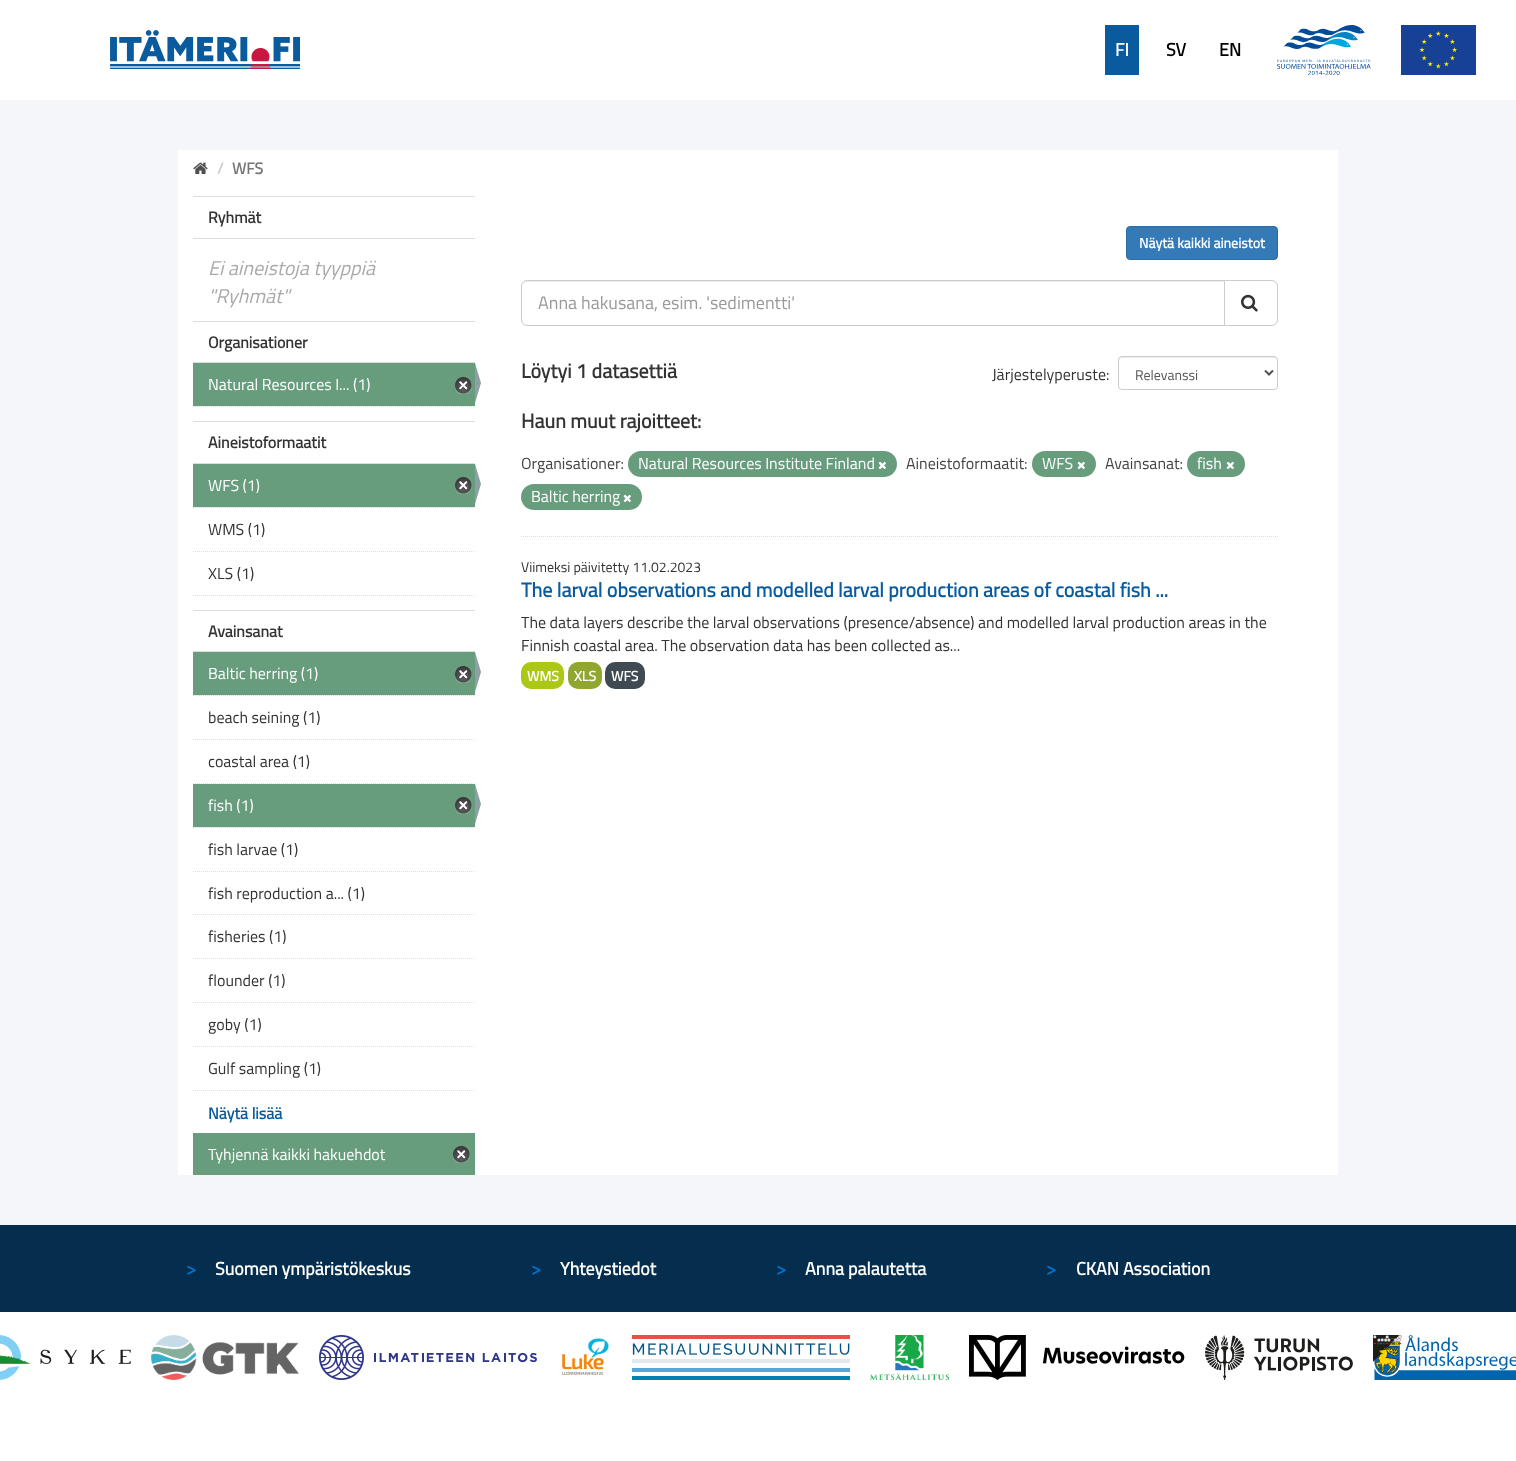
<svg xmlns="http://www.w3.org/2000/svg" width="1516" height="1461">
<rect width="100%" height="100%" fill="#fff"/>
<image x="110" y="30" width="190" height="39" href="media/1.png"/>
<rect x="1105" y="25" width="34" height="50" fill="#095b9d"/>
<text x="1115" y="56" style="font-family:Titillium Web;font-size:18px;font-weight:bold;fill:#fff">FI</text>
<text x="1166" y="56" style="font-family:Titillium Web;font-size:18px;font-weight:bold;fill:#000">SV</text>
<text x="1219" y="56" style="font-family:Titillium Web;font-size:18px;font-weight:bold;fill:#000">EN</text>
<image x="1277" y="25" width="94" height="50" href="media/2.png"/>
<image x="1401" y="25" width="75" height="50" href="media/3.png"/>
<rect y="100" width="1516" height="1125" fill="#f5f6fa"/>
<rect x="178" y="150" width="1160" height="1025" fill="#fff"/>
<image x="193" y="162" width="15" height="12" href="media/4.png"/>
<text x="217" y="174" style="font-family:Titillium Web;font-size:16px;font-weight:bold;fill:#ccc">/</text>
<text x="232" y="174" style="font-family:Titillium Web;font-size:16px;font-weight:bold;fill:#777">WFS</text>
<rect x="193" y="196" width="282" height="1" fill="#ddd"/>
<rect x="193" y="238" width="282" height="1" fill="#ddd"/>
<text x="208" y="223" style="font-family:Titillium Web;font-size:16px;font-weight:bold;fill:#333">Ryhmät</text>
<text x="208" y="275" style="font-family:Titillium Web;font-size:20px;font-style:italic;fill:#aaa">Ei aineistoja tyyppiä</text>
<text x="208" y="303" style="font-family:Titillium Web;font-size:20px;font-style:italic;fill:#aaa">"Ryhmät"</text>
<rect x="193" y="321" width="282" height="1" fill="#ddd"/>
<rect x="193" y="362" width="282" height="1" fill="#ddd"/>
<text x="208" y="348" style="font-family:Titillium Web;font-size:16px;font-weight:bold;fill:#333">Organisationer</text>
<rect x="193" y="363" width="282" height="43" fill="#679d7d"/>
<text x="208" y="390" style="font-family:Titillium Web;font-size:16px;fill:#fff">Natural Resources I... (1)</text>
<image x="455" y="377" width="17" height="17" href="media/5.png"/>
<path d="M475 403v-40l6 20z" fill="#8ca0a6"/>
<path d="M193 406.5h282" fill="none" stroke="#ddd" stroke-dasharray="1 1"/>
<rect x="193" y="421" width="282" height="1" fill="#ddd"/>
<rect x="193" y="463" width="282" height="1" fill="#ddd"/>
<text x="208" y="448" style="font-family:Titillium Web;font-size:16px;font-weight:bold;fill:#333">Aineistoformaatit</text>
<rect x="194" y="507" width="281" height="1" fill="#f6f6f6"/>
<path d="M193 507.5h282" fill="none" stroke="#ddd" stroke-dasharray="1 1"/>
<rect x="193" y="464" width="282" height="43" fill="#679d7d"/>
<text x="208" y="491" style="font-family:Titillium Web;font-size:16px;fill:#fff">WFS (1)</text>
<image x="455" y="477" width="17" height="17" href="media/5.png"/>
<path d="M475 504v-40l6 20z" fill="#8ca0a6"/>
<path d="M193 551.5h282" fill="none" stroke="#ddd" stroke-dasharray="1 1"/>
<text x="208" y="535" style="font-family:Titillium Web;font-size:16px;fill:#333">WMS (1)</text>
<text x="208" y="579" style="font-family:Titillium Web;font-size:16px;fill:#333">XLS (1)</text>
<path d="M193 595.5h282" fill="none" stroke="#ddd" stroke-dasharray="1 1"/>
<rect x="193" y="610" width="282" height="1" fill="#ddd"/>
<rect x="193" y="651" width="282" height="1" fill="#ddd"/>
<text x="208" y="637" style="font-family:Titillium Web;font-size:16px;font-weight:bold;fill:#333">Avainsanat</text>
<rect x="194" y="695" width="281" height="1" fill="#f6f6f6"/>
<path d="M193 695.5h282" fill="none" stroke="#ddd" stroke-dasharray="1 1"/>
<rect x="193" y="652" width="282" height="43" fill="#679d7d"/>
<text x="208" y="679" style="font-family:Titillium Web;font-size:16px;fill:#fff">Baltic herring (1)</text>
<image x="455" y="666" width="17" height="17" href="media/5.png"/>
<path d="M475 692v-40l6 20z" fill="#8ca0a6"/>
<path d="M193 739.5h282" fill="none" stroke="#ddd" stroke-dasharray="1 1"/>
<text x="208" y="723" style="font-family:Titillium Web;font-size:16px;fill:#333">beach seining (1)</text>
<path d="M193 783.5h282" fill="none" stroke="#ddd" stroke-dasharray="1 1"/>
<text x="208" y="767" style="font-family:Titillium Web;font-size:16px;fill:#333">coastal area (1)</text>
<rect x="194" y="827" width="281" height="1" fill="#f6f6f6"/>
<path d="M193 827.5h282" fill="none" stroke="#ddd" stroke-dasharray="1 1"/>
<rect x="193" y="784" width="282" height="43" fill="#679d7d"/>
<text x="208" y="811" style="font-family:Titillium Web;font-size:16px;fill:#fff">fish (1)</text>
<image x="455" y="797" width="17" height="17" href="media/5.png"/>
<path d="M475 824v-40l6 20z" fill="#8ca0a6"/>
<path d="M193 871.5h282" fill="none" stroke="#ddd" stroke-dasharray="1 1"/>
<text x="208" y="855" style="font-family:Titillium Web;font-size:16px;fill:#333">fish larvae (1)</text>
<path d="M193 914.5h282" fill="none" stroke="#ddd" stroke-dasharray="1 1"/>
<text x="208" y="899" style="font-family:Titillium Web;font-size:16px;fill:#333">fish reproduction a... (1)</text>
<path d="M193 958.5h282" fill="none" stroke="#ddd" stroke-dasharray="1 1"/>
<text x="208" y="942" style="font-family:Titillium Web;font-size:16px;fill:#333">fisheries (1)</text>
<path d="M193 1002.5h282" fill="none" stroke="#ddd" stroke-dasharray="1 1"/>
<text x="208" y="986" style="font-family:Titillium Web;font-size:16px;fill:#333">flounder (1)</text>
<path d="M193 1046.5h282" fill="none" stroke="#ddd" stroke-dasharray="1 1"/>
<text x="208" y="1030" style="font-family:Titillium Web;font-size:16px;fill:#333">goby (1)</text>
<text x="208" y="1074" style="font-family:Titillium Web;font-size:16px;fill:#333">Gulf sampling (1)</text>
<path d="M193 1090.5h282" fill="none" stroke="#ddd" stroke-dasharray="1 1"/>
<text x="208" y="1119" style="font-family:Titillium Web;font-size:16px;font-weight:bold;fill:#095b9d">Näytä lisää</text>
<rect x="193" y="1133" width="282" height="42" fill="#679d7d"/>
<text x="208" y="1160" style="font-family:Titillium Web;font-size:16px;fill:#fff">Tyhjennä kaikki hakuehdot</text>
<image x="453" y="1146" width="17" height="17" href="media/5.png"/>
<rect x="1126.5" y="226.5" width="151" height="33" rx="3.5" fill="#337ab7" stroke="#2e6da4"/>
<text x="1139" y="248" style="font-family:Titillium Web;font-size:14px;font-weight:bold;fill:#fff">Näytä kaikki aineistot</text>
<path d="M521 536.5h757" fill="none" stroke="#ddd" stroke-dasharray="1 1"/>
<path d="M527 282h697v-1h-697c-3 0-5 3-5 6c0-3 2-5 5-5z" fill="#ececec"/>
<path d="M527 280.5h697.5v45h-697.5c-3 0-5.5-2.5-5.5-5.5v-34c0-3 2.5-5.5 5.5-5.5z" fill="none" stroke="#ccc"/>
<text x="538" y="309" style="font-family:Titillium Web;font-size:18px;fill:#999">Anna hakusana, esim. 'sedimentti'</text>
<path d="M1224.5 280.5h47.5c3 0 5.5 2.5 5.5 5.5v34c0 3-2.5 5.5-5.5 5.5h-47.5z" fill="#fff" stroke="#ccc"/>
<image x="1241" y="294" width="17" height="18" href="media/6.png"/>
<text x="521" y="378" style="font-family:Titillium Web;font-size:20px;font-weight:bold;fill:#333">Löytyi 1 datasettiä</text>
<text x="992" y="380" style="font-family:Titillium Web;font-size:16px;fill:#333">Järjestelyperuste:</text>
<path d="M1122 358h152c2 0 3 1 3 3c0-2-1-4-3-4h-153c-2 0-2 2-2 4c0-2 1-3 3-3z" fill="#ececec"/>
<rect x="1118.5" y="356.5" width="159" height="33" rx="3.5" fill="none" stroke="#ccc"/>
<path d="M1265 370.5l4 4l4-4" fill="none" stroke="#555" stroke-width="2"/>
<text x="1135" y="380" style="font-family:Titillium Web;font-size:14px;fill:#555">Relevanssi</text>
<text x="521" y="428" style="font-family:Titillium Web;font-size:20px;font-weight:bold;fill:#333">Haun muut rajoitteet:</text>
<text x="521" y="469" style="font-family:Titillium Web;font-size:16px;fill:#444">Organisationer:</text>
<rect x="628" y="451" width="269" height="26" rx="13" fill="#679d7d"/>
<text x="638" y="469" style="font-family:Titillium Web;font-size:16px;fill:#fff">Natural Resources Institute Finland</text>
<image x="878" y="461" width="8" height="9" href="media/7.png"/>
<text x="906" y="469" style="font-family:Titillium Web;font-size:16px;fill:#444">Aineistoformaatit:</text>
<rect x="1032" y="451" width="64" height="26" rx="13" fill="#679d7d"/>
<text x="1042" y="469" style="font-family:Titillium Web;font-size:16px;fill:#fff">WFS</text>
<image x="1077" y="461" width="8" height="9" href="media/7.png"/>
<text x="1105" y="469" style="font-family:Titillium Web;font-size:16px;fill:#444">Avainsanat:</text>
<rect x="1187" y="451" width="58" height="26" rx="13" fill="#679d7d"/>
<text x="1197" y="469" style="font-family:Titillium Web;font-size:16px;fill:#fff">fish</text>
<image x="1226" y="461" width="8" height="9" href="media/7.png"/>
<rect x="521" y="484" width="121" height="26" rx="13" fill="#679d7d"/>
<text x="531" y="502" style="font-family:Titillium Web;font-size:16px;fill:#fff">Baltic herring</text>
<image x="623" y="494" width="8" height="9" href="media/7.png"/>
<text x="521" y="572" style="font-family:Titillium Web;font-size:14px;fill:#333">Viimeksi päivitetty 11.02.2023</text>
<text x="521" y="597" style="font-family:Titillium Web;font-size:20px;font-weight:bold;fill:#095b9d">The larval observations and modelled larval production areas of coastal fish ...</text>
<text x="521" y="628" style="font-family:Titillium Web;font-size:16px;fill:#333">The data layers describe the larval observations (presence/absence) and modelled larval production areas in the</text>
<text x="521" y="651" style="font-family:Titillium Web;font-size:16px;fill:#333">Finnish coastal area. The observation data has been collected as...</text>
<rect x="521" y="662" width="43" height="27" rx="10" fill="#adc717"/>
<text x="527" y="681" style="font-family:Titillium Web;font-size:14px;font-weight:bold;fill:#fff">WMS</text>
<rect x="568" y="662" width="34" height="27" rx="10" fill="#91a62f"/>
<text x="574" y="681" style="font-family:Titillium Web;font-size:14px;font-weight:bold;fill:#fff">XLS</text>
<rect x="605" y="662" width="40" height="27" rx="10" fill="#3f4a52"/>
<text x="611" y="681" style="font-family:Titillium Web;font-size:14px;font-weight:bold;fill:#fff">WFS</text>
<rect y="1225" width="1516" height="87" fill="#052d4d"/>
<text x="186" y="1275" style="font-family:Titillium Web;font-size:18px;font-weight:bold;fill:#0074d0">&gt;</text>
<text x="215" y="1275" style="font-family:Titillium Web;font-size:18px;font-weight:bold;fill:#fff">Suomen ympäristökeskus</text>
<text x="531" y="1275" style="font-family:Titillium Web;font-size:18px;font-weight:bold;fill:#0074d0">&gt;</text>
<text x="560" y="1275" style="font-family:Titillium Web;font-size:18px;font-weight:bold;fill:#fff">Yhteystiedot</text>
<text x="776" y="1275" style="font-family:Titillium Web;font-size:18px;font-weight:bold;fill:#0074d0">&gt;</text>
<text x="805" y="1275" style="font-family:Titillium Web;font-size:18px;font-weight:bold;fill:#fff">Anna palautetta</text>
<text x="1046" y="1275" style="font-family:Titillium Web;font-size:18px;font-weight:bold;fill:#0074d0">&gt;</text>
<text x="1076" y="1275" style="font-family:Titillium Web;font-size:18px;font-weight:bold;fill:#fff">CKAN Association</text>
<image x="0" y="1335" width="131" height="45" href="media/8.png"/>
<image x="151" y="1335" width="148" height="45" href="media/9.png"/>
<image x="319" y="1335" width="218" height="45" href="media/10.png"/>
<image x="560" y="1338" width="49" height="37" href="media/11.png"/>
<image x="632" y="1335" width="218" height="45" href="media/12.png"/>
<image x="870" y="1335" width="79" height="45" href="media/13.png"/>
<image x="969" y="1335" width="216" height="45" href="media/14.png"/>
<image x="1205" y="1335" width="148" height="45" href="media/15.png"/>
<image x="1373" y="1335" width="143" height="45" href="media/16.png"/>
</svg>
